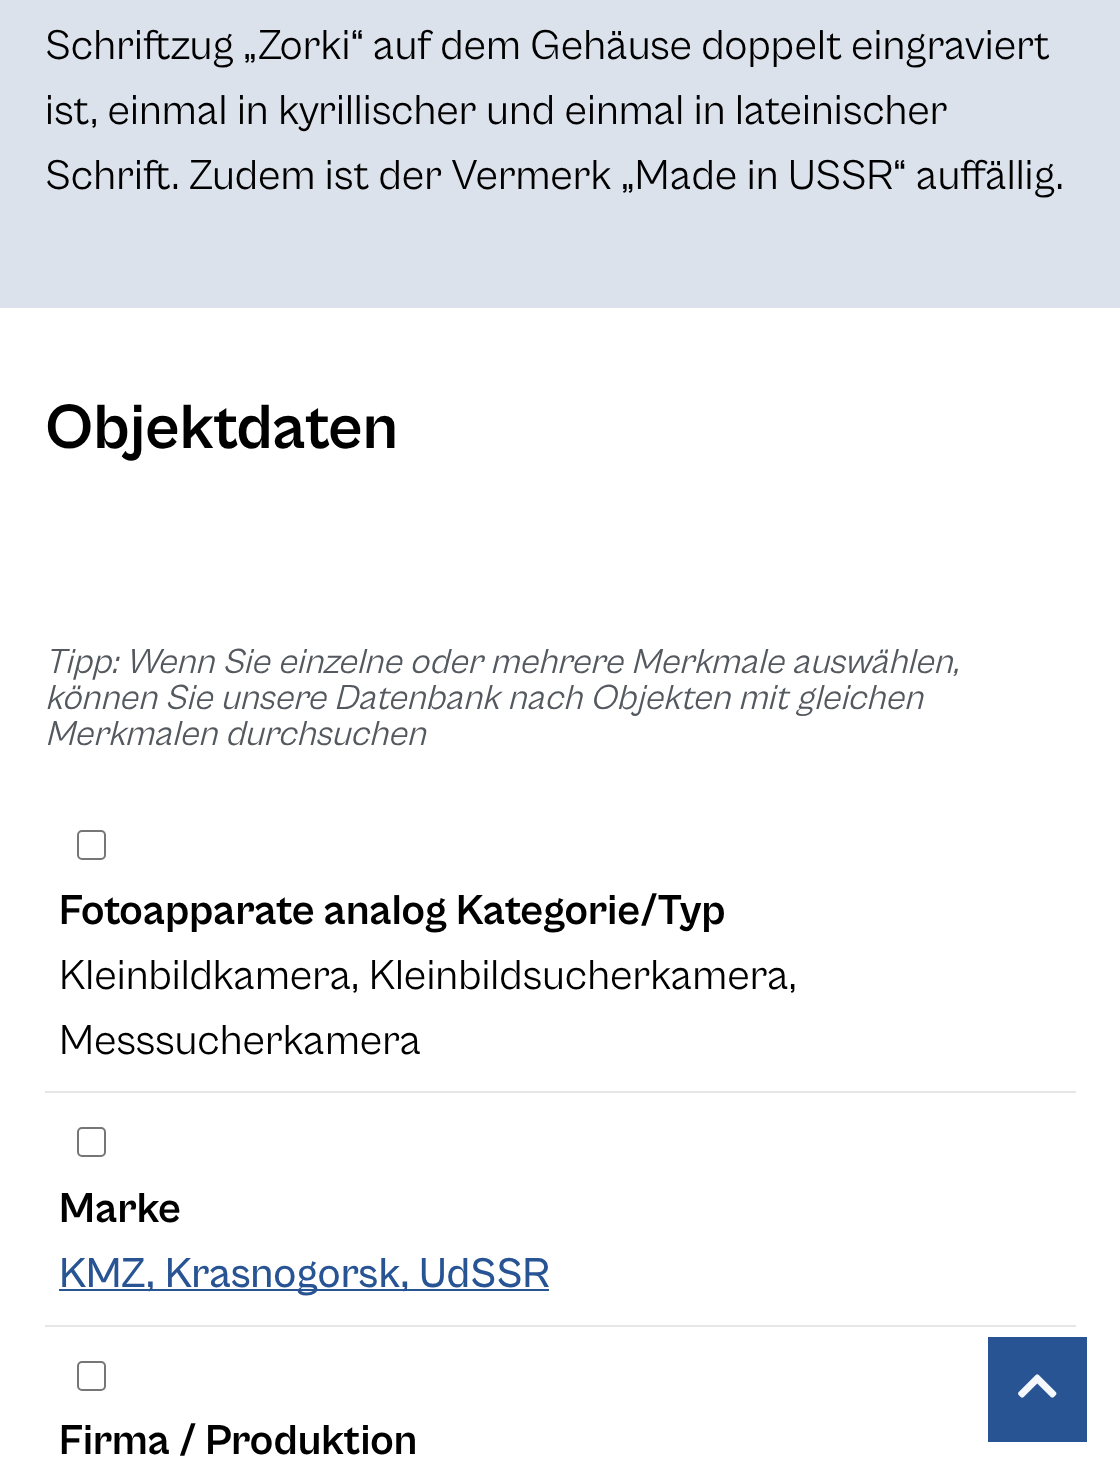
<svg xmlns="http://www.w3.org/2000/svg" width="1120" height="1476">
<rect width="100%" height="100%" fill="#fff"/>
<rect width="1120" height="308" fill="#dce2ec"/>
<text x="45" y="59" word-spacing="-0.25" style="font-family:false;font-size:43.2px;fill:#000">Schriftzug „Zorki“ auf dem Gehäuse doppelt eingraviert</text>
<text x="45" y="124" style="font-family:false;font-size:43.2px;fill:#000">ist, einmal in kyrillischer und einmal in lateinischer</text>
<text x="45" y="189" style="font-family:false;font-size:43.2px;fill:#000">Schrift. Zudem ist der Vermerk „Made in USSR“ auffällig.</text>
<text x="45" y="448" style="font-family:false;font-size:64.75px;font-weight:bold;fill:#000">Objektdaten</text>
<text x="45" y="673" style="font-family:false;font-size:36px;font-style:italic;fill:#54595f">Tipp: Wenn Sie einzelne oder mehrere Merkmale auswählen,</text>
<text x="45" y="709" style="font-family:false;font-size:36px;font-style:italic;fill:#54595f">können Sie unsere Datenbank nach Objekten mit gleichen</text>
<text x="45" y="745" style="font-family:false;font-size:36px;font-style:italic;fill:#54595f">Merkmalen durchsuchen</text>
<rect x="45" y="1091" width="1031" height="2" fill="#e6e6e6"/>
<rect x="78" y="831" width="27" height="28" rx="4" fill="none" stroke="#767676" stroke-width="2"/>
<text x="59" y="924" style="font-family:false;font-size:43.2px;font-weight:bold;fill:#000">Fotoapparate analog Kategorie/Typ</text>
<text x="59" y="989" style="font-family:false;font-size:43.2px;fill:#000">Kleinbildkamera, Kleinbildsucherkamera,</text>
<text x="59" y="1054" style="font-family:false;font-size:43.2px;fill:#000">Messsucherkamera</text>
<rect x="45" y="1325" width="1031" height="2" fill="#e6e6e6"/>
<rect x="78" y="1128" width="27" height="28" rx="4" fill="none" stroke="#767676" stroke-width="2"/>
<text x="59" y="1222" style="font-family:false;font-size:43.2px;font-weight:bold;fill:#000">Marke</text>
<rect x="59" y="1289" width="490" height="2" fill="#285494"/>
<text x="59" y="1287" style="font-family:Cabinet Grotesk;font-size:43.2px;font-weight:500;fill:#285494">KMZ, Krasnogorsk, UdSSR</text>
<rect x="78" y="1362" width="27" height="28" rx="4" fill="none" stroke="#767676" stroke-width="2"/>
<text x="59" y="1454" style="font-family:false;font-size:43.2px;font-weight:bold;fill:#000">Firma / Produktion</text>
<rect x="988" y="1337" width="99" height="105" fill="#285494"/>
<image x="1018" y="1374" width="39" height="24" href="media/1.png"/>
</svg>
